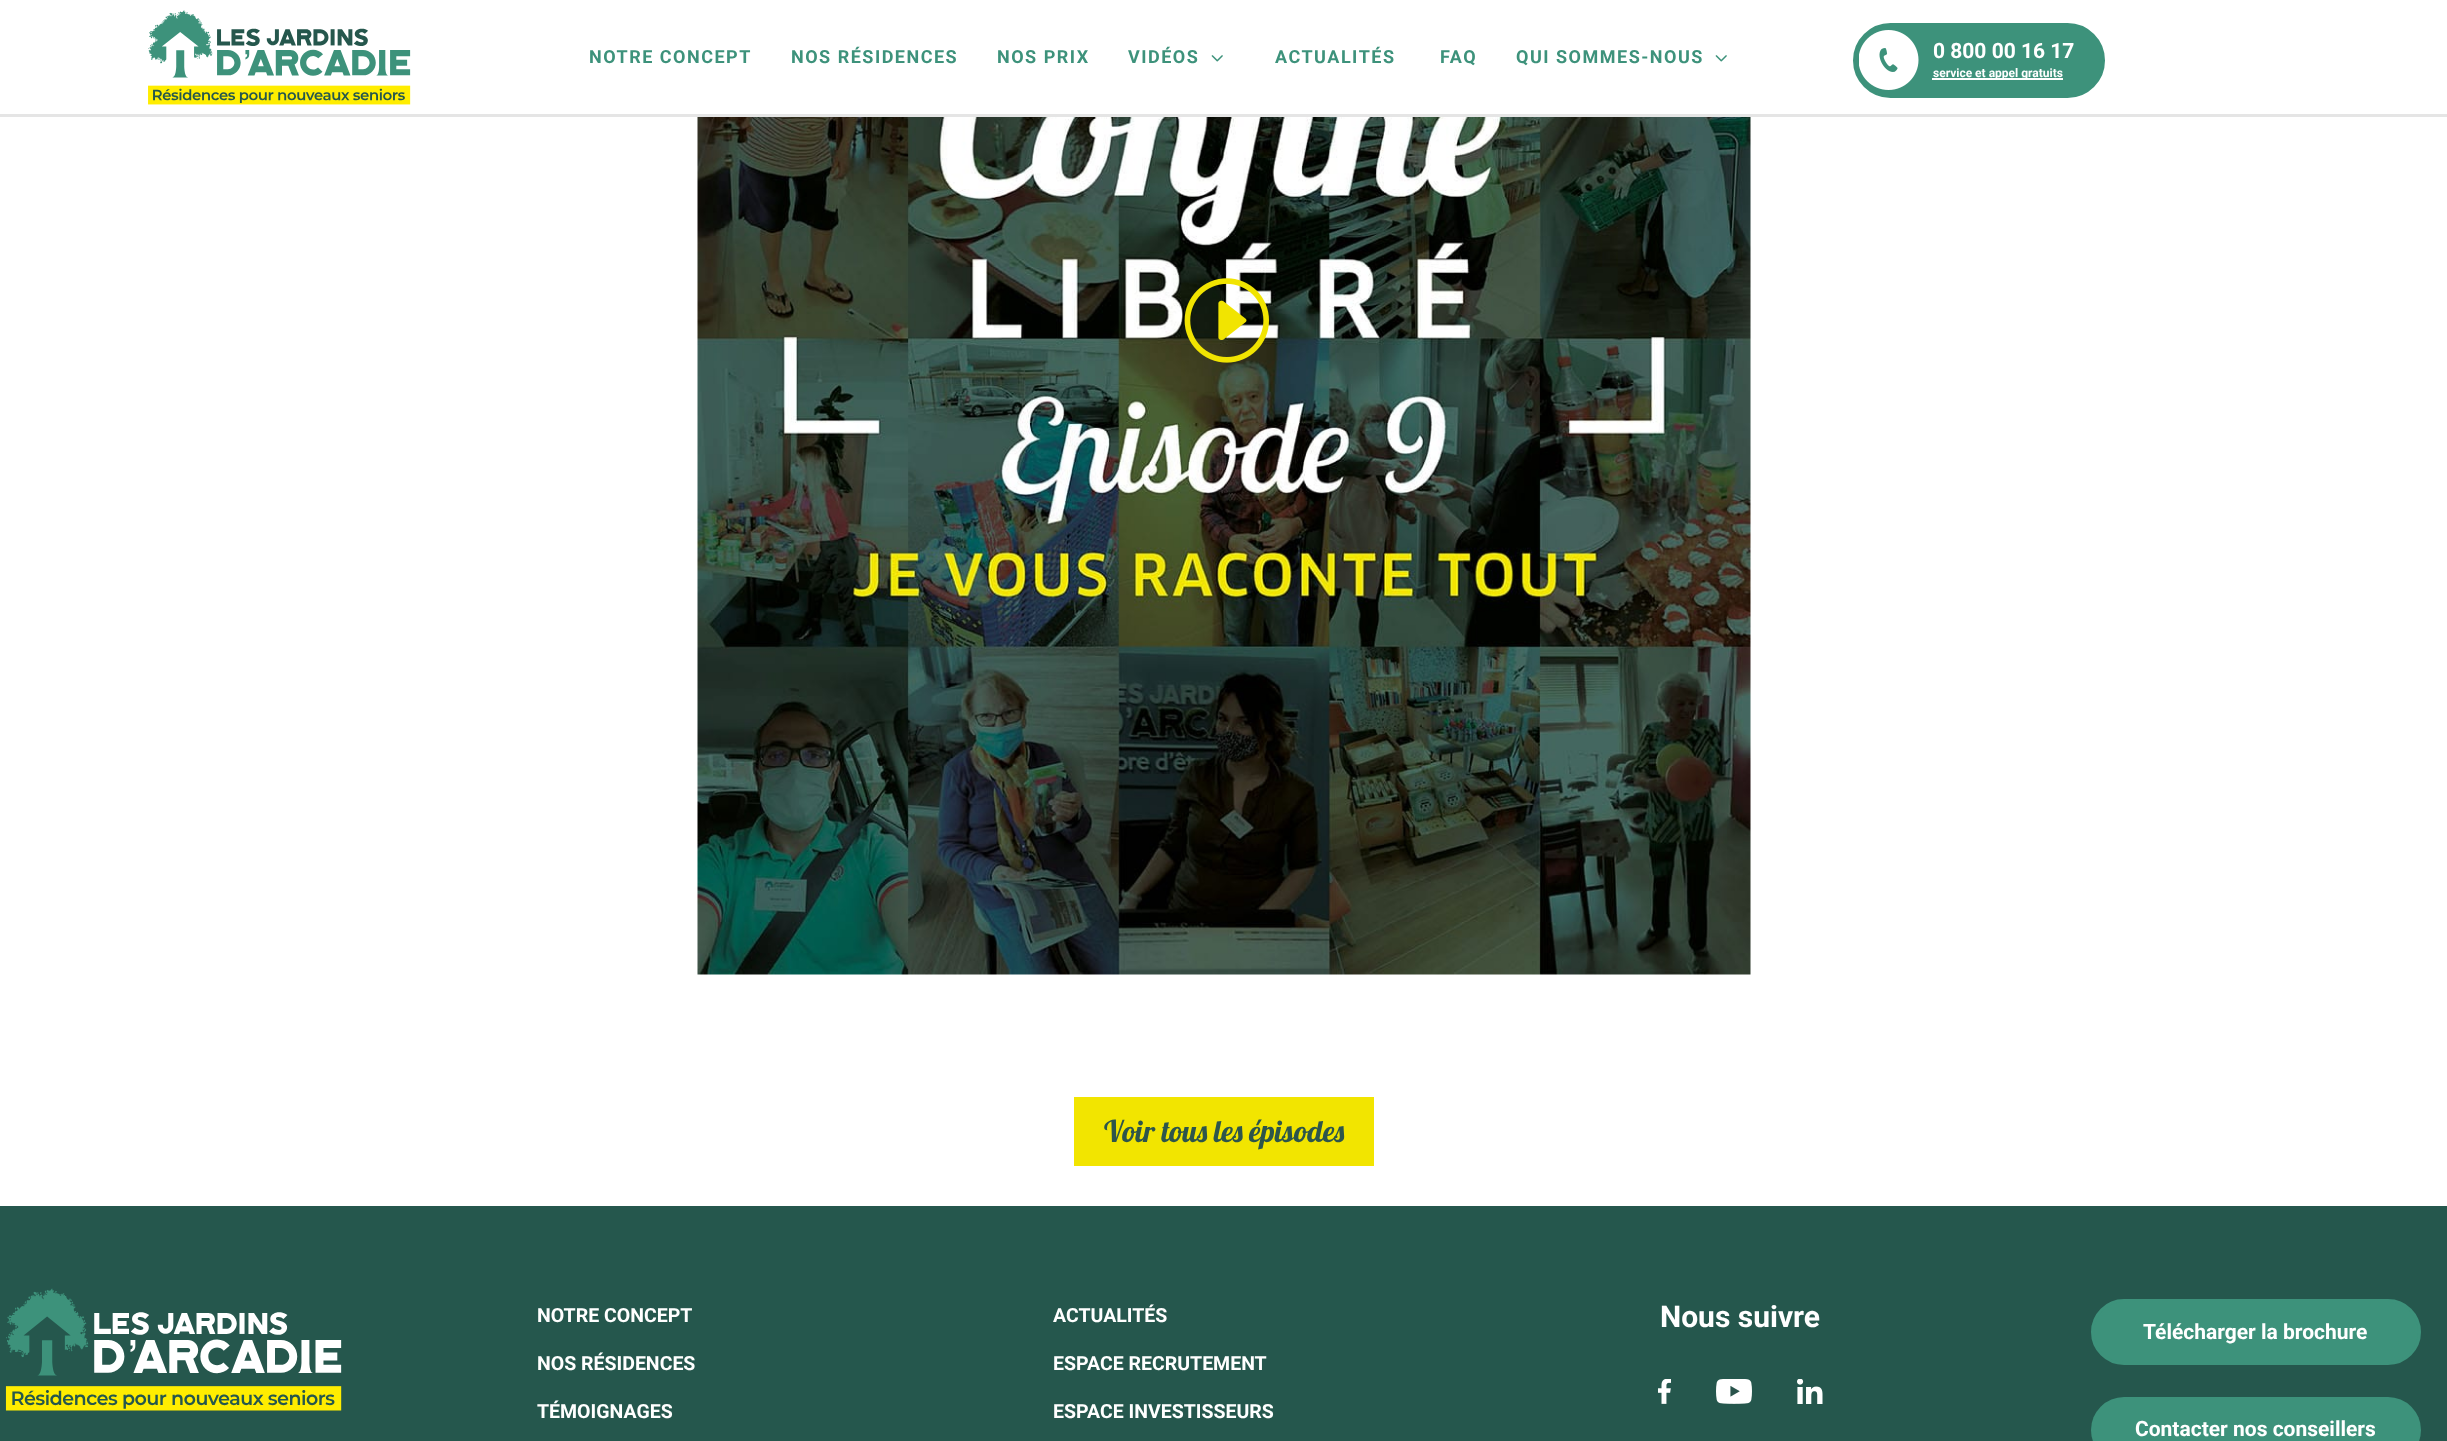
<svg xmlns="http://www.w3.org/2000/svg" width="2447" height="1441">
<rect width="100%" height="100%" fill="#fff"/>
<rect y="114" width="2447" height="3" fill="#e5e5e5"/>
<image x="148" y="10" width="263" height="95" href="media/1.png"/>
<text x="589" y="63" style="font-family:Roboto;font-size:18px;font-weight:bold;letter-spacing:1.5px;fill:#3d927b">NOTRE CONCEPT</text>
<text x="791" y="63" style="font-family:Roboto;font-size:18px;font-weight:bold;letter-spacing:1.5px;fill:#3d927b">NOS RÉSIDENCES</text>
<text x="997" y="63" style="font-family:Roboto;font-size:18px;font-weight:bold;letter-spacing:1.5px;fill:#3d927b">NOS PRIX</text>
<text x="1128" y="63" style="font-family:Roboto;font-size:18px;font-weight:bold;letter-spacing:1.5px;fill:#3d927b">VIDÉOS</text>
<image x="1211" y="55" width="12" height="7" href="media/2.png"/>
<text x="1275" y="63" style="font-family:Roboto;font-size:18px;font-weight:bold;letter-spacing:1.5px;fill:#3d927b">ACTUALITÉS</text>
<text x="1440" y="63" style="font-family:Roboto;font-size:18px;font-weight:bold;letter-spacing:1.5px;fill:#3d927b">FAQ</text>
<text x="1516" y="63" style="font-family:Roboto;font-size:18px;font-weight:bold;letter-spacing:1.5px;fill:#3d927b">QUI SOMMES-NOUS</text>
<image x="1715" y="55" width="12" height="7" href="media/2.png"/>
<rect x="1854" y="24" width="250" height="73" rx="36.5" fill="#3d927b" stroke="#3d927b" stroke-width="2"/>
<image x="1859" y="30" width="60" height="60" href="media/3.png"/>
<text x="1933" y="58" style="font-family:Roboto;font-size:21px;font-weight:bold;fill:#fff">0 800 00 16 17</text>
<rect x="1932" y="78" width="131" height="2" fill="#fff"/>
<text x="1933" y="77" style="font-family:Roboto;font-size:12px;font-weight:bold;fill:#fff">service et appel gratuits</text>
<image x="697" y="117" width="1054" height="858" href="media/4.png"/>
<image x="1184" y="278" width="85" height="85" href="media/5.png"/>
<rect x="1074" y="1097" width="300" height="69" fill="#f2e500"/>
<text x="1104" y="1142" style="font-family:Lobster;font-size:30px;fill:#2d554b">Voir tous les épisodes</text>
<rect y="1206" width="2447" height="235" fill="#25574d"/>
<image x="5" y="1288" width="337" height="123" href="media/6.png"/>
<text x="537" y="1322" style="font-family:Roboto;font-size:19.5px;font-weight:bold;fill:#fff">NOTRE CONCEPT</text>
<text x="537" y="1370" style="font-family:Roboto;font-size:19.5px;font-weight:bold;fill:#fff">NOS RÉSIDENCES</text>
<text x="537" y="1418" style="font-family:Roboto;font-size:19.5px;font-weight:bold;fill:#fff">TÉMOIGNAGES</text>
<text x="1053" y="1322" style="font-family:Roboto;font-size:19.5px;font-weight:bold;fill:#fff">ACTUALITÉS</text>
<text x="1053" y="1370" style="font-family:Roboto;font-size:19.5px;font-weight:bold;fill:#fff">ESPACE RECRUTEMENT</text>
<text x="1053" y="1418" style="font-family:Roboto;font-size:19.5px;font-weight:bold;fill:#fff">ESPACE INVESTISSEURS</text>
<text x="1660" y="1327" style="font-family:Roboto;font-size:30px;font-weight:bold;fill:#fff">Nous suivre</text>
<image x="1658" y="1379" width="13" height="25" href="media/7.png"/>
<image x="1716" y="1379" width="36" height="25" href="media/8.png"/>
<image x="1797" y="1379" width="26" height="25" href="media/9.png"/>
<rect x="2092.5" y="1300.5" width="327" height="63" rx="31.5" fill="#3d927b" stroke="#3d927b" stroke-width="3"/>
<text x="2143" y="1339" style="font-family:Roboto;font-size:21px;font-weight:bold;fill:#fff">Télécharger la brochure</text>
<rect x="2091" y="1397" width="330" height="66" rx="33" fill="#3d927b"/>
<text x="2135" y="1436" style="font-family:Roboto;font-size:21px;font-weight:bold;fill:#fff">Contacter nos conseillers</text>
</svg>
